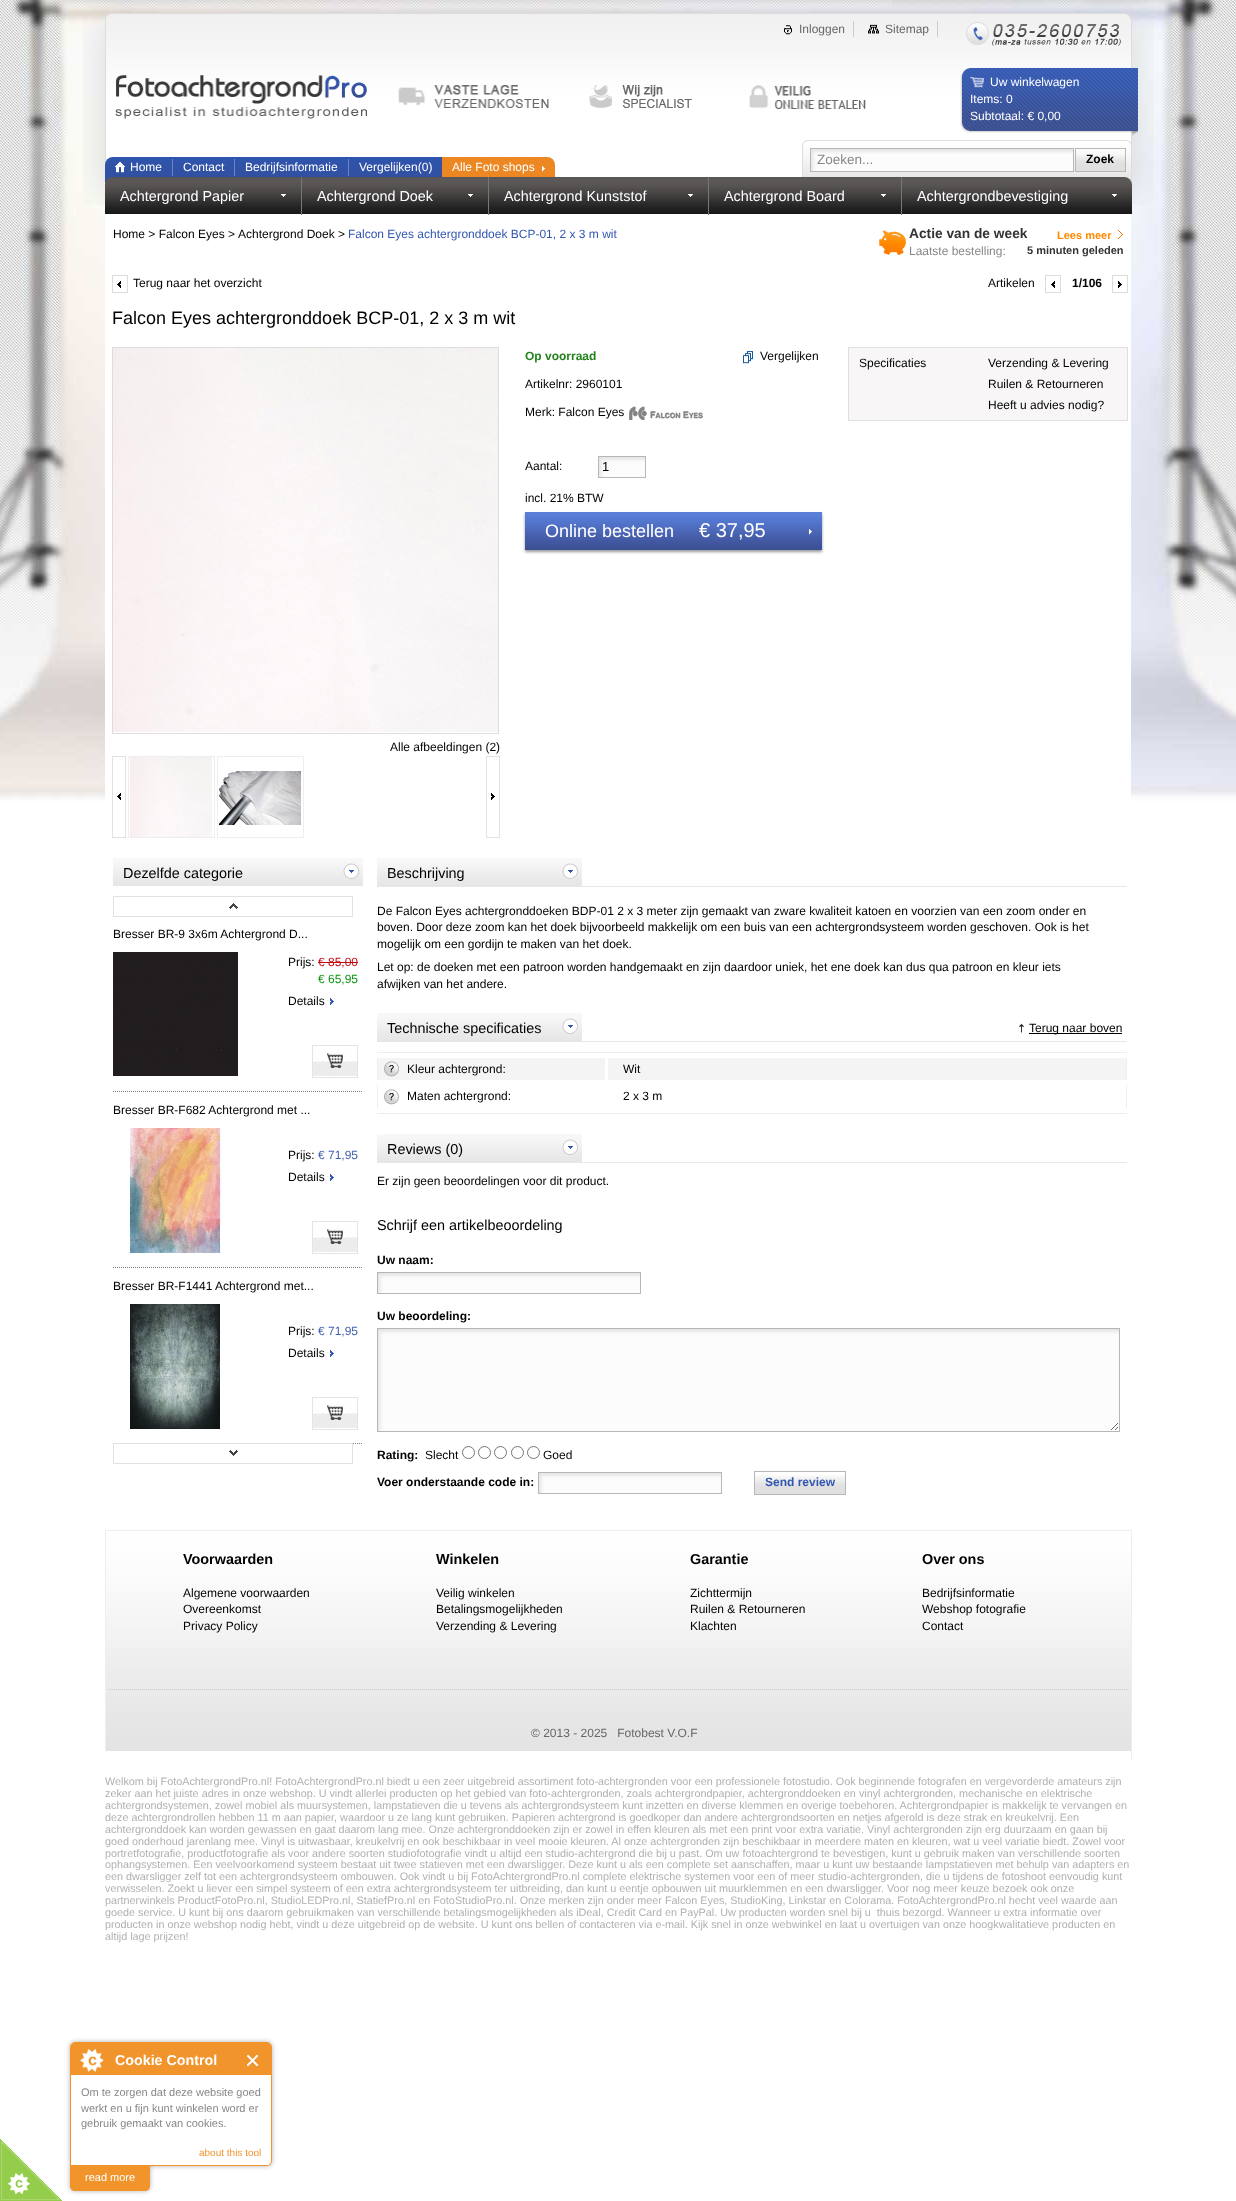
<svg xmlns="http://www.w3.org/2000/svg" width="1236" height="2201">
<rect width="100%" height="100%" fill="#fff"/>
<image x="0" y="0" width="1236" height="801" href="media/1.png"/>
<image x="83" y="0" width="1071" height="205" href="media/2.png"/>
<rect x="853" y="21" width="1" height="16" fill="#ccc"/>
<image x="784" y="25" width="8" height="10" href="media/3.png"/>
<text x="799" y="33" style="font-family:Liberation Sans;font-size:12px;fill:#676767">Inloggen</text>
<rect x="937" y="21" width="1" height="16" fill="#ccc"/>
<image x="868" y="24" width="11" height="10" href="media/4.png"/>
<text x="885" y="33" style="font-family:Liberation Sans;font-size:12px;fill:#676767">Sitemap</text>
<image x="966" y="22" width="155" height="24" href="media/5.png"/>
<image x="115" y="75" width="252" height="44" href="media/6.png"/>
<image x="398" y="85" width="151" height="23" href="media/7.png"/>
<image x="589" y="85" width="103" height="23" href="media/8.png"/>
<image x="749" y="85" width="117" height="24" href="media/9.png"/>
<image x="1132" y="68" width="6" height="68" href="media/10.png"/>
<image x="960" y="68" width="172" height="65" href="media/11.png"/>
<image x="970" y="77" width="14" height="11" href="media/12.png"/>
<text x="990" y="86" style="font-family:Liberation Sans;font-size:12px;fill:#fff">Uw winkelwagen</text>
<text x="970" y="103" style="font-family:Liberation Sans;font-size:12px;fill:#fff">Items: 0</text>
<text x="970" y="120" style="font-family:Liberation Sans;font-size:12px;fill:#fff">Subtotaal: € 0,00</text>
<image x="802" y="140" width="330" height="44" href="media/13.png"/>
<image x="811" y="149" width="262" height="22" href="media/14.png"/>
<rect x="810.5" y="148.5" width="263" height="23" fill="none" stroke="#b7b7b7"/>
<text x="817" y="164" style="font-family:Liberation Sans;font-size:13.5px;fill:#888">Zoeken...</text>
<image x="1076" y="155" width="49" height="16" href="media/15.png"/>
<rect x="1075.5" y="148.5" width="50" height="23" fill="none" stroke="#b7b7b7"/>
<text x="1086" y="163" style="font-family:Liberation Sans;font-size:12px;font-weight:bold;fill:#000">Zoek</text>
<image x="105" y="157" width="67" height="26" href="media/16.png"/>
<image x="115" y="162" width="10" height="11" href="media/17.png"/>
<text x="130" y="171" style="font-family:Liberation Sans;font-size:12px;fill:#fff">Home</text>
<image x="172" y="157" width="62" height="20" href="media/18.png"/>
<rect x="172" y="159" width="1" height="17" fill="#6a84c1"/>
<text x="183" y="171" style="font-family:Liberation Sans;font-size:12px;fill:#fff">Contact</text>
<image x="234" y="157" width="114" height="20" href="media/19.png"/>
<rect x="234" y="159" width="1" height="17" fill="#6a84c1"/>
<text x="245" y="171" style="font-family:Liberation Sans;font-size:12px;fill:#fff">Bedrijfsinformatie</text>
<image x="348" y="157" width="94" height="20" href="media/20.png"/>
<rect x="348" y="159" width="1" height="17" fill="#6a84c1"/>
<text x="359" y="171" style="font-family:Liberation Sans;font-size:12px;fill:#fff">Vergelijken(0)</text>
<image x="442" y="157" width="113" height="20" href="media/21.png"/>
<image x="542" y="166" width="3" height="6" href="media/22.png"/>
<text x="452" y="171" style="font-family:Liberation Sans;font-size:12px;fill:#fff">Alle Foto shops</text>
<image x="105" y="177" width="196" height="37" href="media/23.png"/>
<image x="281" y="194" width="5" height="3" href="media/24.png"/>
<text x="120" y="201" style="font-family:Liberation Sans;font-size:14.4px;fill:#fff">Achtergrond Papier</text>
<rect x="105" y="214" width="1026" height="587" fill="#fff"/>
<rect x="301" y="177" width="1" height="38" fill="#797676"/>
<image x="302" y="177" width="186" height="37" href="media/25.png"/>
<image x="468" y="194" width="5" height="3" href="media/24.png"/>
<text x="317" y="201" style="font-family:Liberation Sans;font-size:14.4px;fill:#fff">Achtergrond Doek</text>
<rect x="488" y="177" width="1" height="38" fill="#797676"/>
<image x="489" y="177" width="219" height="37" href="media/26.png"/>
<image x="688" y="194" width="5" height="3" href="media/24.png"/>
<text x="504" y="201" style="font-family:Liberation Sans;font-size:14.4px;fill:#fff">Achtergrond Kunststof</text>
<rect x="708" y="177" width="1" height="38" fill="#797676"/>
<image x="709" y="177" width="192" height="37" href="media/27.png"/>
<image x="881" y="194" width="5" height="3" href="media/24.png"/>
<text x="724" y="201" style="font-family:Liberation Sans;font-size:14.4px;fill:#fff">Achtergrond Board</text>
<rect x="901" y="177" width="1" height="38" fill="#797676"/>
<image x="902" y="177" width="230" height="37" href="media/28.png"/>
<image x="1112" y="194" width="5" height="3" href="media/24.png"/>
<text x="917" y="201" style="font-family:Liberation Sans;font-size:14.4px;fill:#fff">Achtergrondbevestiging</text>
<text x="113" y="238" style="font-family:Liberation Sans;font-size:12px;fill:#000">Home &gt; Falcon Eyes &gt;</text>
<text x="238" y="238" style="font-family:Liberation Sans;font-size:12px;fill:#000">Achtergrond Doek &gt;</text>
<text x="348" y="238" style="font-family:Liberation Sans;font-size:12px;fill:#3357b1">Falcon Eyes achtergronddoek BCP-01, 2 x 3 m wit</text>
<image x="879" y="230" width="27" height="25" href="media/29.png"/>
<text x="909" y="238" style="font-family:Liberation Sans;font-size:13.75px;font-weight:bold;fill:#333">Actie van de week</text>
<image x="1118" y="230" width="5" height="9" href="media/30.png"/>
<text x="1057" y="239" style="font-family:Liberation Sans;font-size:11px;font-weight:bold;fill:#ff8900">Lees meer</text>
<text x="909" y="255" style="font-family:Liberation Sans;font-size:12px;fill:#888">Laatste bestelling:</text>
<text x="1027" y="254" style="font-family:Liberation Sans;font-size:11px;font-weight:bold;fill:#333">5 minuten geleden</text>
<image x="117" y="281" width="4" height="7" href="media/31.png"/>
<rect x="112.5" y="275.5" width="15" height="17" fill="none" stroke="#ddd"/>
<text x="133" y="287" style="font-family:Liberation Sans;font-size:12px;fill:#000">Terug naar het overzicht</text>
<text x="988" y="287" style="font-family:Liberation Sans;font-size:12px;fill:#000">Artikelen</text>
<image x="1051" y="281" width="4" height="7" href="media/31.png"/>
<rect x="1045.5" y="275.5" width="15" height="17" fill="none" stroke="#ddd"/>
<text x="1072" y="287" style="font-family:Liberation Sans;font-size:12px;font-weight:bold;fill:#000">1/106</text>
<image x="1118" y="281" width="4" height="7" href="media/32.png"/>
<rect x="1112.5" y="275.5" width="15" height="17" fill="none" stroke="#ddd"/>
<text x="112" y="324" style="font-family:Liberation Sans;font-size:18px;fill:#000">Falcon Eyes achtergronddoek BCP-01, 2 x 3 m wit</text>
<text x="525" y="360" style="font-family:Liberation Sans;font-size:12px;font-weight:bold;fill:#23821c">Op voorraad</text>
<text x="525" y="388" style="font-family:Liberation Sans;font-size:12px;fill:#000">Artikelnr: 2960101</text>
<text x="525" y="416" style="font-family:Liberation Sans;font-size:12px;fill:#000">Merk: Falcon Eyes</text>
<image x="629" y="406" width="74" height="14" href="media/33.png"/>
<image x="743" y="351" width="10" height="13" href="media/34.png"/>
<text x="760" y="360" style="font-family:Liberation Sans;font-size:12px;fill:#000">Vergelijken</text>
<text x="525" y="470" style="font-family:Liberation Sans;font-size:12px;fill:#000">Aantal:</text>
<image x="599" y="457" width="46" height="20" href="media/35.png"/>
<rect x="598.5" y="456.5" width="47" height="21" fill="none" stroke="#b7b7b7"/>
<text x="602" y="471" style="font-family:Liberation Sans;font-size:13px;fill:#000">1</text>
<text x="525" y="502" style="font-family:Liberation Sans;font-size:12px;fill:#000">incl. 21% BTW</text>
<rect x="525" y="514" width="297" height="38" fill="#999" filter="blur(1.5px)"/>
<rect x="525" y="512" width="297" height="38" fill="#597fda"/>
<image x="525" y="516" width="297" height="34" href="media/36.png"/>
<image x="809" y="529" width="3" height="6" href="media/37.png"/>
<text x="545" y="537" style="font-family:Liberation Sans;font-size:18px;fill:#fff">Online bestellen</text>
<text x="699" y="537" style="font-family:Liberation Sans;font-size:20px;fill:#fff">€ 37,95</text>
<rect x="848.5" y="347.5" width="279" height="73" fill="#f8f6f6" stroke="#dfdfdf"/>
<text x="859" y="367" style="font-family:Liberation Sans;font-size:12px;fill:#000">Specificaties</text>
<text x="988" y="367" style="font-family:Liberation Sans;font-size:12px;fill:#000">Verzending &amp; Levering</text>
<text x="988" y="388" style="font-family:Liberation Sans;font-size:12px;fill:#000">Ruilen &amp; Retourneren</text>
<text x="988" y="409" style="font-family:Liberation Sans;font-size:12px;fill:#000">Heeft u advies nodig?</text>
<rect x="112.5" y="347.5" width="386" height="386" fill="none" stroke="#ddd"/>
<image x="113" y="348" width="385" height="384" href="media/38.png"/>
<text x="390" y="751" style="font-family:Liberation Sans;font-size:12px;fill:#000">Alle afbeeldingen (2)</text>
<image x="117" y="793" width="4" height="7" href="media/39.png"/>
<rect x="112.5" y="756.5" width="13" height="81" fill="none" stroke="#e1e1e1"/>
<image x="491" y="793" width="4" height="7" href="media/40.png"/>
<rect x="486.5" y="756.5" width="13" height="81" fill="none" stroke="#e1e1e1"/>
<rect x="128.5" y="756.5" width="86" height="81" fill="none" stroke="#eee"/>
<image x="130" y="757" width="82" height="80" href="media/41.png"/>
<rect x="217.5" y="756.5" width="86" height="81" fill="none" stroke="#eee"/>
<image x="219" y="771" width="82" height="54" href="media/42.png"/>
<image x="113" y="858" width="250" height="28" href="media/43.png"/>
<image x="343" y="863" width="16" height="16" href="media/44.png"/>
<text x="123" y="878" style="font-family:Liberation Sans;font-size:14.4px;fill:#000">Dezelfde categorie</text>
<image x="229" y="903" width="9" height="6" href="media/45.png"/>
<rect x="113.5" y="896.5" width="239" height="20" fill="none" stroke="#e1e1e1"/>
<image x="229" y="1450" width="9" height="6" href="media/46.png"/>
<path d="M113 1443.5h250" fill="none" stroke="#7a7a7a" stroke-dasharray="1 1"/>
<rect x="113.5" y="1443.5" width="239" height="20" fill="none" stroke="#e1e1e1"/>
<path d="M113 1091.5h250" fill="none" stroke="#7a7a7a" stroke-dasharray="1 1"/>
<text x="113" y="938" style="font-family:Liberation Sans;font-size:12px;fill:#000">Bresser BR-9 3x6m Achtergrond D...</text>
<image x="113" y="952" width="125" height="124" href="media/47.png"/>
<text x="288" y="966" style="font-family:Liberation Sans;font-size:12px;fill:#000">Prijs:</text>
<text x="318" y="966" style="font-family:Liberation Sans;font-size:12px;fill:#c40a11">€ 85,00</text>
<rect x="318" y="962" width="40" height="1" fill="#c40a11"/>
<text x="318" y="983" style="font-family:Liberation Sans;font-size:12px;fill:#0a9411">€ 65,95</text>
<image x="330" y="998" width="4" height="7" href="media/48.png"/>
<text x="288" y="1005" style="font-family:Liberation Sans;font-size:12px;fill:#000">Details</text>
<image x="313" y="1051" width="44" height="25" href="media/49.png"/>
<rect x="312.5" y="1045.5" width="45" height="32" fill="none" stroke="#e4e4e4"/>
<image x="327" y="1053" width="16" height="15" href="media/50.png"/>
<path d="M113 1267.5h250" fill="none" stroke="#7a7a7a" stroke-dasharray="1 1"/>
<text x="113" y="1114" style="font-family:Liberation Sans;font-size:12px;fill:#000">Bresser BR-F682 Achtergrond met ...</text>
<image x="128" y="1128" width="94" height="125" href="media/51.png"/>
<text x="288" y="1159" style="font-family:Liberation Sans;font-size:12px;fill:#000">Prijs:</text>
<text x="318" y="1159" style="font-family:Liberation Sans;font-size:12px;fill:#4160b2">€ 71,95</text>
<image x="330" y="1174" width="4" height="7" href="media/48.png"/>
<text x="288" y="1181" style="font-family:Liberation Sans;font-size:12px;fill:#000">Details</text>
<image x="313" y="1227" width="44" height="25" href="media/49.png"/>
<rect x="312.5" y="1221.5" width="45" height="32" fill="none" stroke="#e4e4e4"/>
<image x="327" y="1229" width="16" height="15" href="media/50.png"/>
<text x="113" y="1290" style="font-family:Liberation Sans;font-size:12px;fill:#000">Bresser BR-F1441 Achtergrond met...</text>
<image x="130" y="1304" width="90" height="125" href="media/52.png"/>
<text x="288" y="1335" style="font-family:Liberation Sans;font-size:12px;fill:#000">Prijs:</text>
<text x="318" y="1335" style="font-family:Liberation Sans;font-size:12px;fill:#4160b2">€ 71,95</text>
<image x="330" y="1350" width="4" height="7" href="media/48.png"/>
<text x="288" y="1357" style="font-family:Liberation Sans;font-size:12px;fill:#000">Details</text>
<image x="313" y="1403" width="44" height="25" href="media/49.png"/>
<rect x="312.5" y="1397.5" width="45" height="32" fill="none" stroke="#e4e4e4"/>
<image x="327" y="1405" width="16" height="15" href="media/50.png"/>
<image x="377" y="858" width="205" height="28" href="media/53.png"/>
<image x="562" y="863" width="16" height="16" href="media/44.png"/>
<text x="387" y="878" style="font-family:Liberation Sans;font-size:14.4px;fill:#000">Beschrijving</text>
<rect x="377" y="886" width="750" height="1" fill="#e7e7e7"/>
<text x="377" y="915" style="font-family:Liberation Sans;font-size:12px;fill:#000">De Falcon Eyes achtergronddoeken BDP-01 2 x 3 meter zijn gemaakt van zware kwaliteit katoen en voorzien van een zoom onder en</text>
<text x="377" y="931" style="font-family:Liberation Sans;font-size:12px;fill:#000">boven. Door deze zoom kan het doek bijvoorbeeld makkelijk om een buis van een achtergrondsysteem worden geschoven. Ook is het</text>
<text x="377" y="948" style="font-family:Liberation Sans;font-size:12px;fill:#000">mogelijk om een gordijn te maken van het doek.</text>
<text x="377" y="971" style="font-family:Liberation Sans;font-size:12px;fill:#000">Let op: de doeken met een patroon worden handgemaakt en zijn daardoor uniek, het ene doek kan dus qua patroon en kleur iets</text>
<text x="377" y="988" style="font-family:Liberation Sans;font-size:12px;fill:#000">afwijken van het andere.</text>
<image x="377" y="1013" width="205" height="28" href="media/53.png"/>
<image x="562" y="1018" width="16" height="16" href="media/44.png"/>
<text x="387" y="1033" style="font-family:Liberation Sans;font-size:14.4px;fill:#000">Technische specificaties</text>
<image x="1019" y="1023" width="5" height="10" href="media/54.png"/>
<rect x="1029" y="1033" width="93" height="1" fill="#000"/>
<text x="1029" y="1032" style="font-family:Liberation Sans;font-size:12px;fill:#000">Terug naar boven</text>
<rect x="377" y="1041" width="750" height="1" fill="#e7e7e7"/>
<rect x="377.5" y="1052.5" width="749" height="61" fill="none" stroke="#eee"/>
<rect x="378" y="1058" width="227" height="22" fill="#f4f4f4"/>
<rect x="376" y="1053" width="2" height="5" fill="#fff"/>
<image x="384" y="1061" width="15" height="16" href="media/55.png"/>
<text x="407" y="1073" style="font-family:Liberation Sans;font-size:12px;fill:#000">Kleur achtergrond:</text>
<rect x="608" y="1058" width="518" height="22" fill="#f4f4f4"/>
<rect x="1126" y="1053" width="2" height="5" fill="#fff"/>
<text x="623" y="1073" style="font-family:Liberation Sans;font-size:12px;fill:#000">Wit</text>
<rect x="376" y="1080" width="2" height="5" fill="#fff"/>
<rect x="376" y="1108" width="2" height="5" fill="#fff"/>
<image x="384" y="1089" width="15" height="16" href="media/56.png"/>
<text x="407" y="1100" style="font-family:Liberation Sans;font-size:12px;fill:#000">Maten achtergrond:</text>
<rect x="1126" y="1080" width="2" height="5" fill="#fff"/>
<rect x="1126" y="1108" width="2" height="5" fill="#fff"/>
<text x="623" y="1100" style="font-family:Liberation Sans;font-size:12px;fill:#000">2 x 3 m</text>
<image x="377" y="1134" width="205" height="28" href="media/53.png"/>
<image x="562" y="1139" width="16" height="16" href="media/44.png"/>
<text x="387" y="1154" style="font-family:Liberation Sans;font-size:14.4px;fill:#000">Reviews (0)</text>
<rect x="377" y="1162" width="750" height="1" fill="#e7e7e7"/>
<text x="377" y="1185" style="font-family:Liberation Sans;font-size:12px;fill:#000">Er zijn geen beoordelingen voor dit product.</text>
<text x="377" y="1230" style="font-family:Liberation Sans;font-size:14.4px;fill:#000">Schrijf een artikelbeoordeling</text>
<text x="377" y="1264" style="font-family:Liberation Sans;font-size:12px;font-weight:bold;fill:#000">Uw naam:</text>
<image x="378" y="1273" width="262" height="20" href="media/57.png"/>
<rect x="377.5" y="1272.5" width="263" height="21" fill="none" stroke="#b7b7b7"/>
<text x="377" y="1320" style="font-family:Liberation Sans;font-size:12px;font-weight:bold;fill:#000">Uw beoordeling:</text>
<image x="378" y="1329" width="741" height="102" href="media/58.png"/>
<rect x="377.5" y="1328.5" width="742" height="103" fill="none" stroke="#b7b7b7"/>
<text x="377" y="1459" style="font-family:Liberation Sans;font-size:12px;font-weight:bold;fill:#000">Rating:</text>
<text x="425" y="1459" style="font-family:Liberation Sans;font-size:12px;fill:#000">Slecht</text>
<circle cx="468.5" cy="1452.5" r="6" fill="none" stroke="#767676"/>
<circle cx="484.5" cy="1452.5" r="6" fill="none" stroke="#767676"/>
<circle cx="500.5" cy="1452.5" r="6" fill="none" stroke="#767676"/>
<circle cx="517.5" cy="1452.5" r="6" fill="none" stroke="#767676"/>
<circle cx="533.5" cy="1452.5" r="6" fill="none" stroke="#767676"/>
<text x="543" y="1459" style="font-family:Liberation Sans;font-size:12px;fill:#000">Goed</text>
<text x="377" y="1486" style="font-family:Liberation Sans;font-size:12px;font-weight:bold;fill:#000">Voer onderstaande code in:</text>
<image x="539" y="1473" width="182" height="20" href="media/59.png"/>
<rect x="538.5" y="1472.5" width="183" height="21" fill="none" stroke="#b7b7b7"/>
<image x="755" y="1475" width="90" height="19" href="media/60.png"/>
<rect x="754.5" y="1471.5" width="91" height="23" fill="none" stroke="#b7b7b7"/>
<text x="765" y="1486" style="font-family:Liberation Sans;font-size:12px;font-weight:bold;fill:#3357b1">Send review</text>
<image x="105" y="1530" width="1027" height="230" href="media/61.png"/>
<text x="183" y="1564" style="font-family:Liberation Sans;font-size:14.4px;font-weight:bold;fill:#000">Voorwaarden</text>
<text x="436" y="1564" style="font-family:Liberation Sans;font-size:14.4px;font-weight:bold;fill:#000">Winkelen</text>
<text x="690" y="1564" style="font-family:Liberation Sans;font-size:14.4px;font-weight:bold;fill:#000">Garantie</text>
<text x="922" y="1564" style="font-family:Liberation Sans;font-size:14.4px;font-weight:bold;fill:#000">Over ons</text>
<text x="183" y="1597" style="font-family:Liberation Sans;font-size:12px;fill:#000">Algemene voorwaarden</text>
<text x="183" y="1613" style="font-family:Liberation Sans;font-size:12px;fill:#000">Overeenkomst</text>
<text x="183" y="1630" style="font-family:Liberation Sans;font-size:12px;fill:#000">Privacy Policy</text>
<text x="436" y="1597" style="font-family:Liberation Sans;font-size:12px;fill:#000">Veilig winkelen</text>
<text x="436" y="1613" style="font-family:Liberation Sans;font-size:12px;fill:#000">Betalingsmogelijkheden</text>
<text x="436" y="1630" style="font-family:Liberation Sans;font-size:12px;fill:#000">Verzending &amp; Levering</text>
<text x="690" y="1597" style="font-family:Liberation Sans;font-size:12px;fill:#000">Zichttermijn</text>
<text x="690" y="1613" style="font-family:Liberation Sans;font-size:12px;fill:#000">Ruilen &amp; Retourneren</text>
<text x="690" y="1630" style="font-family:Liberation Sans;font-size:12px;fill:#000">Klachten</text>
<text x="922" y="1597" style="font-family:Liberation Sans;font-size:12px;fill:#000">Bedrijfsinformatie</text>
<text x="922" y="1613" style="font-family:Liberation Sans;font-size:12px;fill:#000">Webshop fotografie</text>
<text x="922" y="1630" style="font-family:Liberation Sans;font-size:12px;fill:#000">Contact</text>
<path d="M108 1689.5h1020" fill="none" stroke="#ccc" stroke-dasharray="1 1"/>
<text x="531" y="1737" style="font-family:Liberation Sans;font-size:12px;fill:#676767" xml:space="preserve">© 2013 - 2025   Fotobest V.O.F</text>
<rect x="105" y="1751" width="1026" height="9" fill="#fff"/>
<text x="105" y="1785" style="font-family:Liberation Sans;font-size:10.8px;fill:#b0b0b0">Welkom bij FotoAchtergrondPro.nl! FotoAchtergrondPro.nl biedt u een zeer uitgebreid assortiment foto-achtergronden voor een professionele fotostudio. Ook beginnende fotografen en vergevorderde amateurs zijn</text>
<text x="105" y="1797" style="font-family:Liberation Sans;font-size:10.8px;fill:#b0b0b0">zeker aan het juiste adres in onze webshop. U vindt allerlei producten op het gebied van foto-achtergronden, zoals achtergrondpapier, achtergronddoeken en vinyl achtergronden, mechanische en elektrische</text>
<text x="105" y="1809" style="font-family:Liberation Sans;font-size:10.8px;fill:#b0b0b0">achtergrondsystemen, zowel mobiel als muursystemen, lampstatieven die u tevens als achtergrondsysteem kunt inzetten en diverse klemmen en overige toebehoren. Achtergrondpapier is makkelijk te vervangen en</text>
<text x="105" y="1821" style="font-family:Liberation Sans;font-size:10.8px;fill:#b0b0b0">deze achtergrondrollen hebben 11 m aan papier, waardoor u ze lang kunt gebruiken. Papieren achtergrond is goedkoper dan andere achtergrondsoorten en netjes afgerold is deze strak en kreukelvrij. Een</text>
<text x="105" y="1833" style="font-family:Liberation Sans;font-size:10.8px;fill:#b0b0b0">achtergronddoek kan worden gewassen en gaat daarom lang mee. Onze achtergronddoeken zijn er zowel in effen kleuren als met een print voor extra variatie. Vinyl achtergronden zijn erg duurzaam en gaan bij</text>
<text x="105" y="1845" style="font-family:Liberation Sans;font-size:10.8px;fill:#b0b0b0">goed onderhoud jarenlang mee. Vinyl is uitwasbaar, kreukelvrij en ook beschikbaar in veel mooie kleuren. Al onze achtergronden zijn beschikbaar in meerdere maten en kleuren, wat u veel variatie biedt. Zowel voor</text>
<text x="105" y="1857" style="font-family:Liberation Sans;font-size:10.8px;fill:#b0b0b0">portretfotografie, productfotografie als voor andere soorten studiofotografie vindt u altijd een studio-achtergrond die bij u past. Om uw fotoachtergrond te bevestigen, kunt u gebruik maken van verschillende soorten</text>
<text x="105" y="1868" style="font-family:Liberation Sans;font-size:10.8px;fill:#b0b0b0">ophangsystemen. Een veelvoorkomend systeem bestaat uit twee statieven met een dwarsligger. Deze kunt u als een complete set aanschaffen, maar u kunt uw bestaande lampstatieven met behulp van adapters en</text>
<text x="105" y="1880" style="font-family:Liberation Sans;font-size:10.8px;fill:#b0b0b0">een dwarsligger zelf tot een achtergrondsysteem ombouwen. Ook vindt u bij FotoAchtergrondPro.nl complete elektrische systemen voor een of meer studio-achtergronden, die u tijdens de fotoshoot eenvoudig kunt</text>
<text x="105" y="1892" style="font-family:Liberation Sans;font-size:10.8px;fill:#b0b0b0">verwisselen. Zoekt u liever een simpel systeem of een extra achtergrondsysteem ter uitbreiding, dan kunt u eentje opbouwen uit muurklemmen en een dwarsligger. Voor nog meer keuze bezoek ook onze</text>
<text x="105" y="1904" style="font-family:Liberation Sans;font-size:10.8px;fill:#b0b0b0">partnerwinkels ProductFotoPro.nl, StudioLEDPro.nl, StatiefPro.nl en FotoStudioPro.nl. Onze merken zijn onder meer Falcon Eyes, StudioKing, Linkstar en Colorama. FotoAchtergrondPro.nl hecht veel waarde aan</text>
<text x="105" y="1916" style="font-family:Liberation Sans;font-size:10.8px;fill:#b0b0b0" xml:space="preserve">goede service. U kunt bij ons daarom gebruikmaken van verschillende betalingsmogelijkheden als iDeal, Credit Card en PayPal. Uw producten worden snel bij u  thuis bezorgd. Wanneer u extra informatie over</text>
<text x="105" y="1928" style="font-family:Liberation Sans;font-size:10.8px;fill:#b0b0b0">producten in onze webshop nodig hebt, vindt u deze uitgebreid op de website. U kunt ons bellen of contacteren via e-mail. Kijk snel in onze webwinkel en laat u overtuigen van onze hoogkwalitatieve producten en</text>
<text x="105" y="1940" style="font-family:Liberation Sans;font-size:10.8px;fill:#b0b0b0">altijd lage prijzen!</text>
<image x="0" y="2139" width="62" height="62" href="media/62.png"/>
<rect x="70" y="2042" width="202" height="124" rx="5" fill="#0000004d" filter="blur(2.5px)"/>
<path d="M75 2042.5h192c2.5 0 4.5 2 4.5 4.5v114c0 2.5-2 4.5-4.5 4.5h-196.5v-118.5c0-2.5 2-4.5 4.5-4.5z" fill="#fff" stroke="#f0942b"/>
<rect x="70" y="2164" width="80" height="27" rx="5" fill="#0000004d" filter="blur(2.5px)"/>
<path d="M70 2164h80v22c0 3-2 5-5 5h-70c-3 0-5-2-5-5z" fill="#f0942b"/>
<path d="M76 2043h190c3 0 5 2 5 5v112c0 3-2 5-5 5h-195v-117c0-3 2-5 5-5z" fill="#fff"/>
<path d="M74 2043h194c1.5 0 3 1.5 3 3v29h-200v-29c0-1.5 1.5-3 3-3z" fill="#f0942b"/>
<image x="80" y="2049" width="24" height="23" href="media/63.png"/>
<text x="115" y="2065" style="font-family:Liberation Sans;font-size:14.25px;font-weight:bold;fill:#fff">Cookie Control</text>
<image x="247" y="2054" width="12" height="13" href="media/64.png"/>
<text x="81" y="2096" style="font-family:Liberation Sans;font-size:11px;fill:#888">Om te zorgen dat deze website goed</text>
<text x="81" y="2112" style="font-family:Liberation Sans;font-size:11px;fill:#888">werkt en u fijn kunt winkelen word er</text>
<text x="81" y="2127" style="font-family:Liberation Sans;font-size:11px;fill:#888">gebruik gemaakt van cookies.</text>
<text x="199" y="2156" style="font-family:Liberation Sans;font-size:10px;fill:#f0942b">about this tool</text>
<text x="85" y="2181" style="font-family:Liberation Sans;font-size:11px;fill:#fff">read more</text>
</svg>
